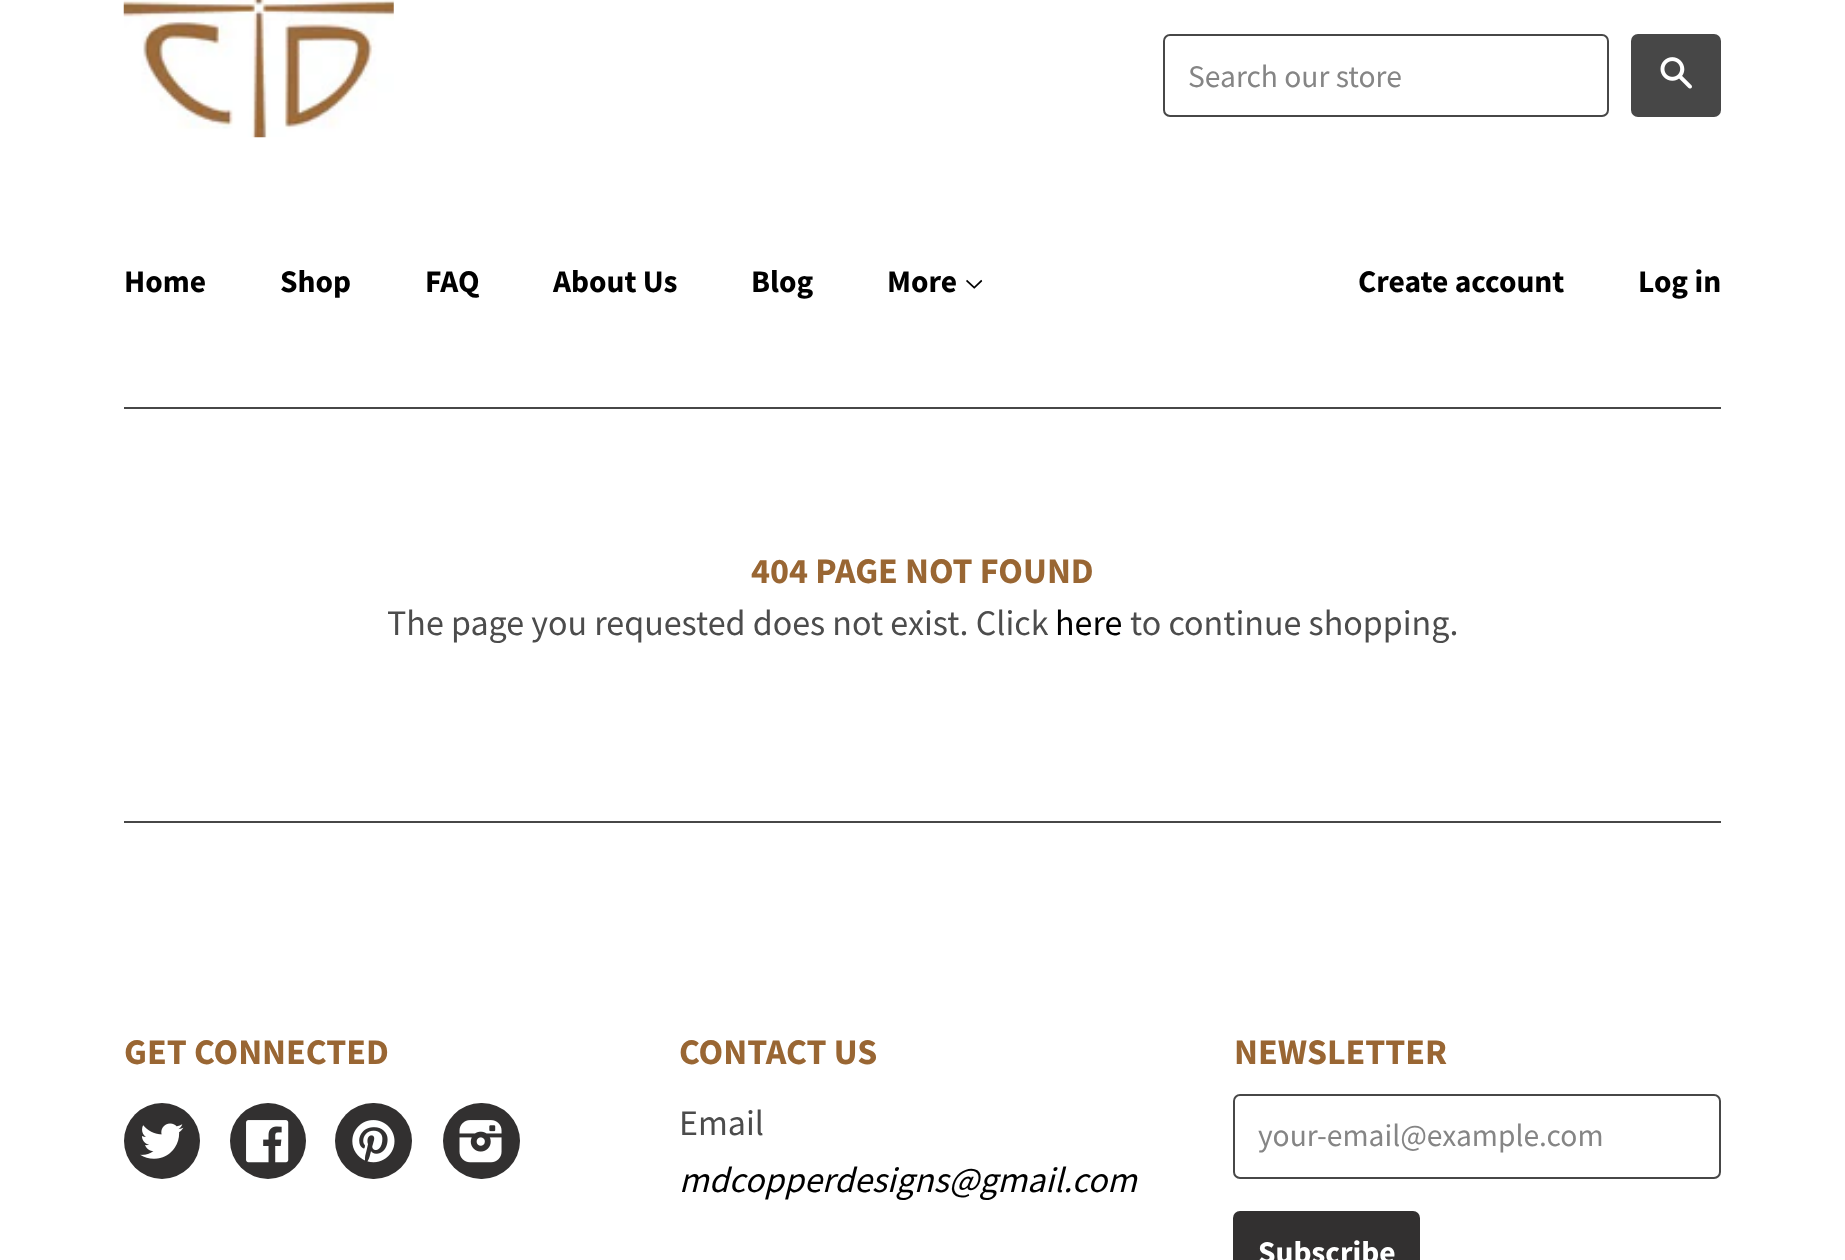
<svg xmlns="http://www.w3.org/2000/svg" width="1845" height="1260">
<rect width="100%" height="100%" fill="#fff"/>
<image x="123" y="0" width="271" height="138" href="media/1.png"/>
<rect x="1164" y="35" width="444" height="81" rx="6" fill="none" stroke="#474747" stroke-width="2"/>
<text x="1188" y="87" style="font-family:Source Sans Pro;font-size:31.5px;fill:#858585">Search our store</text>
<rect x="1631" y="34" width="90" height="83" rx="7" fill="#474747"/>
<image x="1660" y="57" width="32" height="32" href="media/2.png"/>
<text x="124" y="292" style="font-family:Source Sans Pro;font-size:31.5px;font-weight:bold;fill:#000">Home</text>
<text x="280" y="292" style="font-family:Source Sans Pro;font-size:31.5px;font-weight:bold;fill:#000">Shop</text>
<text x="425" y="292" style="font-family:Source Sans Pro;font-size:31.5px;font-weight:bold;fill:#000">FAQ</text>
<text x="553" y="292" style="font-family:Source Sans Pro;font-size:31.5px;font-weight:bold;fill:#000">About Us</text>
<text x="751" y="292" style="font-family:Source Sans Pro;font-size:31.5px;font-weight:bold;fill:#000">Blog</text>
<text x="887" y="292" style="font-family:Source Sans Pro;font-size:31.5px;font-weight:bold;fill:#000">More</text>
<image x="966" y="279" width="17" height="10" href="media/3.png"/>
<text x="1358" y="292" style="font-family:Source Sans Pro;font-size:31.5px;font-weight:bold;fill:#000">Create account</text>
<text x="1638" y="292" style="font-family:Source Sans Pro;font-size:31.5px;font-weight:bold;fill:#000">Log in</text>
<rect x="124" y="407" width="1597" height="2" fill="#474747"/>
<text x="751" y="583" style="font-family:Source Sans Pro;font-size:36px;font-weight:bold;fill:#963">404 PAGE NOT FOUND</text>
<text x="387" y="635" style="font-family:Source Sans Pro;font-size:36px;fill:#4c4c4c">The page you requested does not exist. Click</text>
<text x="1055" y="635" style="font-family:Source Sans Pro;font-size:36px;fill:#000">here</text>
<text x="1130" y="635" style="font-family:Source Sans Pro;font-size:36px;fill:#4c4c4c">to continue shopping.</text>
<rect x="124" y="821" width="1597" height="2" fill="#474747"/>
<text x="124" y="1064" style="font-family:Source Sans Pro;font-size:36px;font-weight:bold;fill:#963">GET CONNECTED</text>
<circle cx="162" cy="1141" r="38" fill="#323030"/>
<image x="140" y="1123" width="44" height="36" href="media/4.png"/>
<circle cx="268" cy="1141" r="38" fill="#323030"/>
<image x="246" y="1120" width="43" height="43" href="media/5.png"/>
<rect x="335" y="1103" width="77" height="76" rx="38" fill="#323030"/>
<image x="352" y="1120" width="43" height="43" href="media/6.png"/>
<rect x="443" y="1103" width="77" height="76" rx="38" fill="#323030"/>
<image x="459" y="1120" width="43" height="43" href="media/7.png"/>
<text x="679" y="1064" style="font-family:Source Sans Pro;font-size:36px;font-weight:bold;fill:#963">CONTACT US</text>
<text x="679" y="1135" style="font-family:Source Sans Pro;font-size:36px;fill:#4c4c4c">Email</text>
<text x="679" y="1192" style="font-family:Source Sans Pro;font-size:36px;font-style:italic;fill:#000">mdcopperdesigns@gmail.com</text>
<text x="1234" y="1064" style="font-family:Source Sans Pro;font-size:36px;font-weight:bold;fill:#963">NEWSLETTER</text>
<rect x="1234" y="1095" width="486" height="83" rx="6" fill="none" stroke="#474747" stroke-width="2"/>
<text x="1258" y="1146" style="font-family:Source Sans Pro;font-size:31.5px;fill:#858585">your-email@example.com</text>
<rect x="1233" y="1211" width="187" height="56" rx="7" fill="#323030"/>
<text x="1258" y="1263" style="font-family:Source Sans Pro;font-size:31.5px;font-weight:bold;fill:#fff">Subscribe</text>
</svg>
